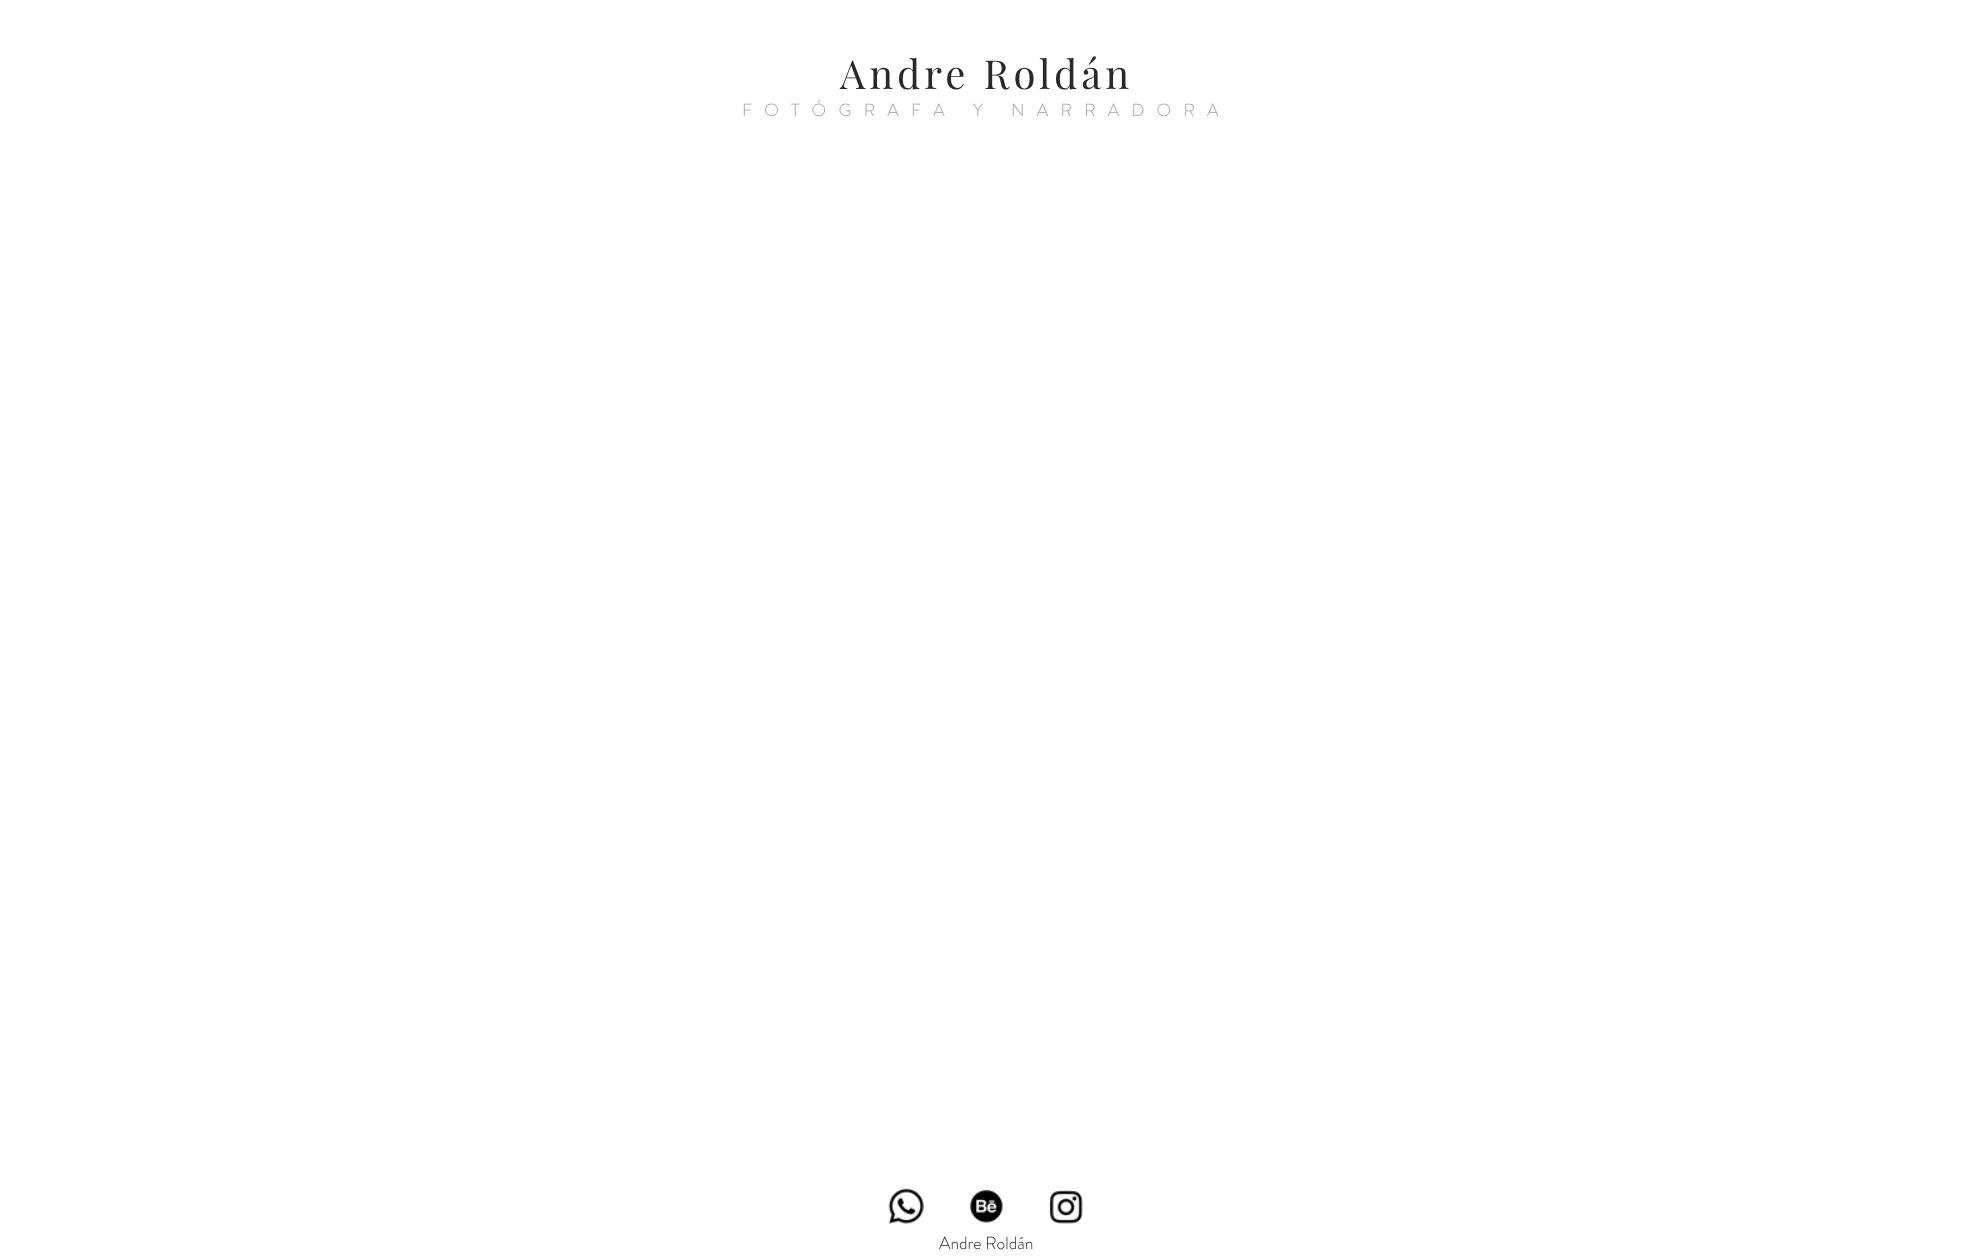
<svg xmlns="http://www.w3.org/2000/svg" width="1972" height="1260">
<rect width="100%" height="100%" fill="#fff"/>
<text x="840" y="89" style="font-family:Playfair Display;font-size:40px;letter-spacing:4px;fill:#292929">Andre Roldán</text>
<text x="742" y="116" style="font-family:'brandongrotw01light';font-size:17.5px;font-weight:300;letter-spacing:12.25px;fill:#a0a09f">FOTÓGRAFA Y NARRADORA</text>
<image x="888" y="1188" width="36" height="36" href="media/1.png"/>
<image x="969" y="1189" width="34" height="34" href="media/2.png"/>
<image x="1049" y="1190" width="34" height="34" href="media/3.png"/>
<text x="939" y="1249" style="font-family:'brandongrotw01light';font-size:17.5px;font-weight:300;fill:#292929">Andre Roldán</text>
</svg>
